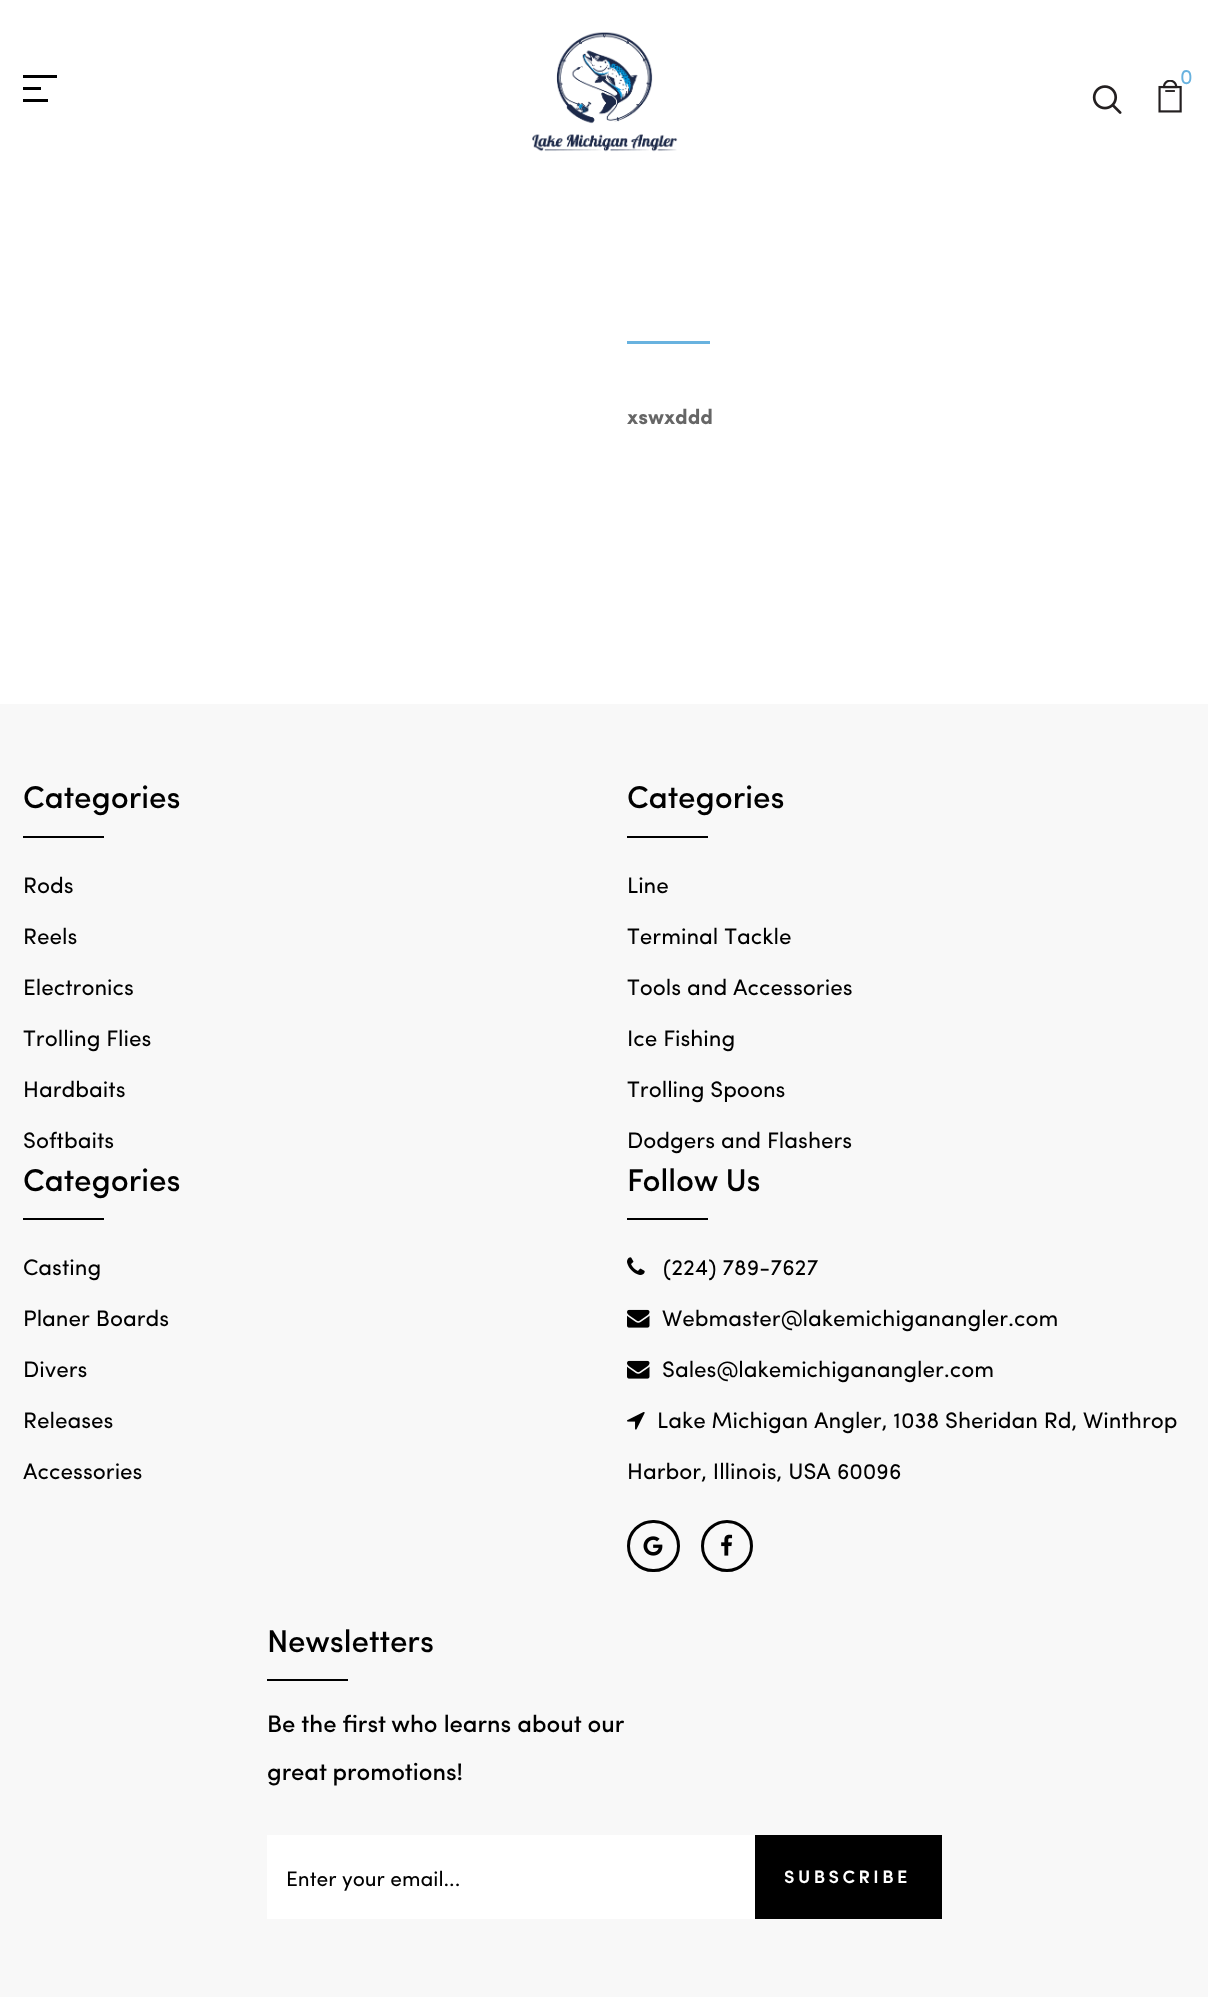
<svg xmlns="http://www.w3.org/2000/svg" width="1208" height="2001">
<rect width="100%" height="100%" fill="#fff"/>
<rect x="23" y="75" width="34" height="3" fill="#000"/>
<rect x="23" y="87" width="18" height="3" fill="#000"/>
<rect x="23" y="99" width="25" height="3" fill="#000"/>
<image x="532" y="32" width="146" height="120" href="media/1.png"/>
<image x="1158" y="80" width="24" height="33" href="media/2.png"/>
<text x="1180" y="84" style="font-family:Sofia;font-size:21px;fill:#68b2df">0</text>
<image x="1092" y="85" width="30" height="29" href="media/3.png"/>
<rect x="627" y="341" width="83" height="3" fill="#68b2df"/>
<text x="627" y="424" style="font-family:Sofia;font-size:21px;font-weight:bold;fill:#666">xswxddd</text>
<rect y="704" width="1208" height="1293" fill="#f8f8f8"/>
<text x="23" y="808" style="font-family:Sofia;font-size:31.5px;font-weight:500;fill:#000">Categories</text>
<rect x="23" y="836" width="81" height="2" fill="#000"/>
<text x="23" y="893" style="font-family:Sofia;font-size:22.5px;fill:#000">Rods</text>
<text x="23" y="944" style="font-family:Sofia;font-size:22.5px;fill:#000">Reels</text>
<text x="23" y="995" style="font-family:Sofia;font-size:22.5px;fill:#000">Electronics</text>
<text x="23" y="1046" style="font-family:Sofia;font-size:22.5px;fill:#000">Trolling Flies</text>
<text x="23" y="1097" style="font-family:Sofia;font-size:22.5px;fill:#000">Hardbaits</text>
<text x="23" y="1148" style="font-family:Sofia;font-size:22.5px;fill:#000">Softbaits</text>
<text x="627" y="808" style="font-family:Sofia;font-size:31.5px;font-weight:500;fill:#000">Categories</text>
<rect x="627" y="836" width="81" height="2" fill="#000"/>
<text x="627" y="893" style="font-family:Sofia;font-size:22.5px;fill:#000">Line</text>
<text x="627" y="944" style="font-family:Sofia;font-size:22.5px;fill:#000">Terminal Tackle</text>
<text x="627" y="995" style="font-family:Sofia;font-size:22.5px;fill:#000">Tools and Accessories</text>
<text x="627" y="1046" style="font-family:Sofia;font-size:22.5px;fill:#000">Ice Fishing</text>
<text x="627" y="1097" style="font-family:Sofia;font-size:22.5px;fill:#000">Trolling Spoons</text>
<text x="627" y="1148" style="font-family:Sofia;font-size:22.5px;fill:#000">Dodgers and Flashers</text>
<text x="23" y="1191" style="font-family:Sofia;font-size:31.5px;font-weight:500;fill:#000">Categories</text>
<rect x="23" y="1218" width="81" height="2" fill="#000"/>
<text x="23" y="1275" style="font-family:Sofia;font-size:22.5px;fill:#000">Casting</text>
<text x="23" y="1326" style="font-family:Sofia;font-size:22.5px;fill:#000">Planer Boards</text>
<text x="23" y="1377" style="font-family:Sofia;font-size:22.5px;fill:#000">Divers</text>
<text x="23" y="1428" style="font-family:Sofia;font-size:22.5px;fill:#000">Releases</text>
<text x="23" y="1479" style="font-family:Sofia;font-size:22.5px;fill:#000">Accessories</text>
<text x="627" y="1191" style="font-family:Sofia;font-size:31.5px;font-weight:500;fill:#000">Follow Us</text>
<rect x="627" y="1218" width="81" height="2" fill="#000"/>
<image x="627" y="1257" width="18" height="18" href="media/4.png"/>
<text x="663" y="1275" style="font-family:Sofia;font-size:22.5px;fill:#000">(224) 789-7627</text>
<image x="627" y="1309" width="23" height="19" href="media/5.png"/>
<text x="662" y="1326" style="font-family:Sofia;font-size:22.5px;fill:#000">Webmaster@lakemichiganangler.com</text>
<image x="627" y="1360" width="23" height="19" href="media/5.png"/>
<text x="662" y="1377" style="font-family:Sofia;font-size:22.5px;fill:#000">Sales@lakemichiganangler.com</text>
<image x="627" y="1412" width="18" height="18" href="media/6.png"/>
<text x="657" y="1428" style="font-family:Sofia;font-size:22.5px;fill:#000">Lake Michigan Angler, 1038 Sheridan Rd, Winthrop</text>
<text x="627" y="1479" style="font-family:Sofia;font-size:22.5px;fill:#000">Harbor, Illinois, USA 60096</text>
<rect x="628.5" y="1521.5" width="50" height="49" rx="24.5" fill="none" stroke="#000" stroke-width="3"/>
<image x="643" y="1536" width="20" height="20" href="media/7.png"/>
<circle cx="727" cy="1546" r="24.5" fill="none" stroke="#000" stroke-width="3"/>
<image x="721" y="1534" width="12" height="22" href="media/8.png"/>
<text x="267" y="1652" style="font-family:Sofia;font-size:31.5px;font-weight:500;fill:#000">Newsletters</text>
<rect x="267" y="1679" width="81" height="2" fill="#000"/>
<text x="267" y="1732" style="font-family:Sofia;font-size:24px;font-weight:500;fill:#000">Be the first who learns about our</text>
<text x="267" y="1780" style="font-family:Sofia;font-size:24px;font-weight:500;fill:#000">great promotions!</text>
<rect x="267" y="1835" width="488" height="84" fill="#fff"/>
<text x="286" y="1886" style="font-family:Sofia;font-size:21px;fill:#000">Enter your email...</text>
<rect x="755" y="1835" width="187" height="84" fill="#000"/>
<text x="784" y="1883" style="font-family:Sofia;font-size:18px;font-weight:600;letter-spacing:3.5px;fill:#fff">SUBSCRIBE</text>
</svg>
